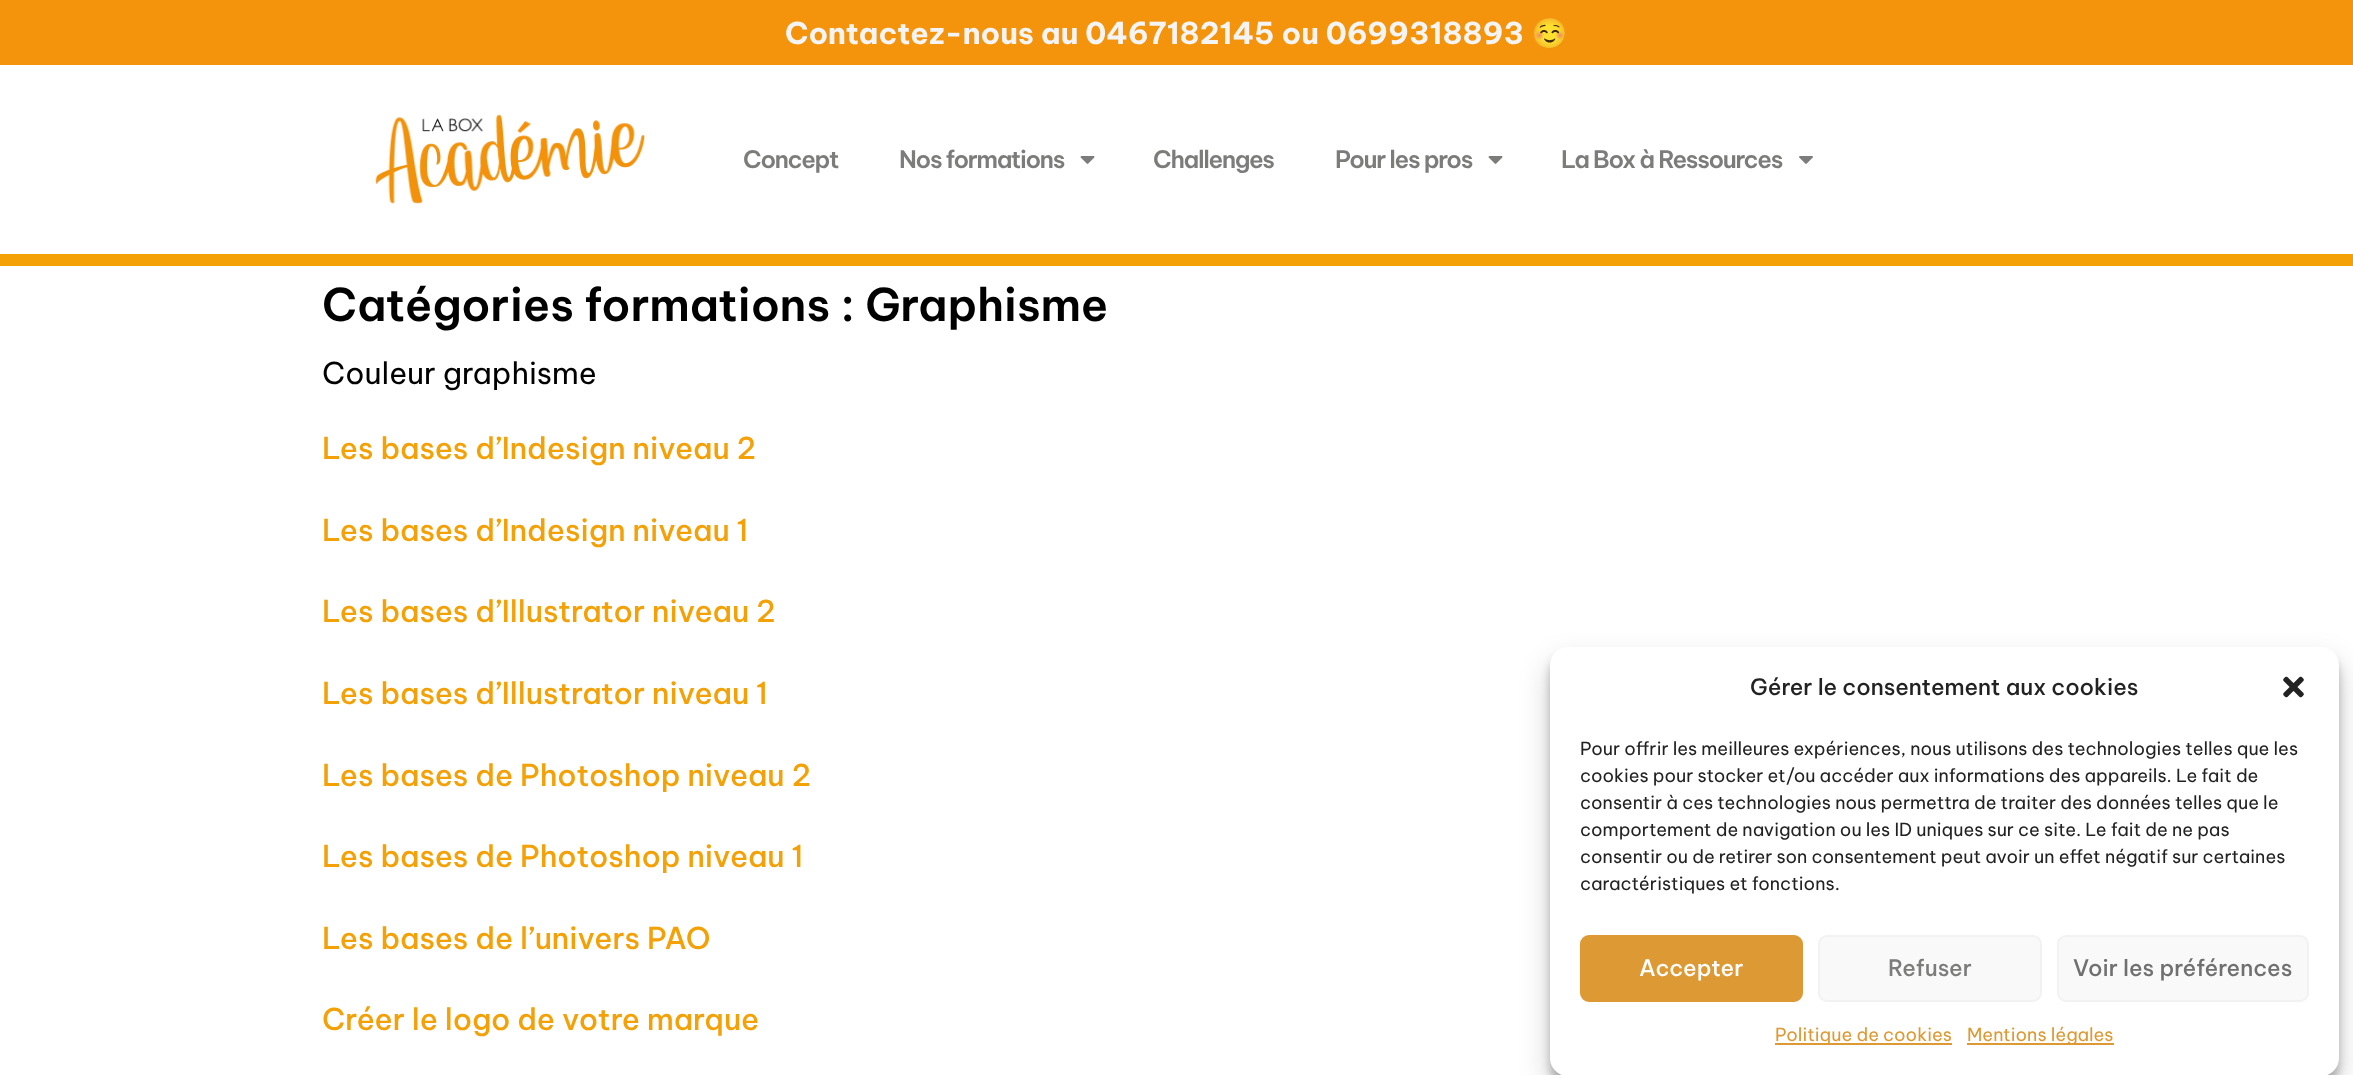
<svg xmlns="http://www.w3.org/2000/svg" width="2353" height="1075">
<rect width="100%" height="100%" fill="#fff"/>
<rect width="2353" height="65" fill="#f4940c"/>
<text x="785" y="44" style="font-family:Be Vietnam Pro;font-size:30px;font-weight:bold;fill:#f4f4f4">Contactez-nous au 0467182145 ou 0699318893</text>
<text x="1531" y="44" style="font-family:Noto Color Emoji;font-size:30px;font-weight:bold;fill:#f4f4f4">☺️</text>
<image x="375" y="114" width="270" height="90" href="media/1.png"/>
<text x="743" y="168" style="font-family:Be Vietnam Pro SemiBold;font-size:24px;font-weight:600;letter-spacing:-1.25px;fill:#7c7c7b">Concept</text>
<text x="899" y="168" style="font-family:Be Vietnam Pro SemiBold;font-size:24px;font-weight:600;letter-spacing:-1.25px;fill:#7c7c7b">Nos formations</text>
<image x="1080" y="156" width="15" height="8" href="media/2.png"/>
<text x="1153" y="168" style="font-family:Be Vietnam Pro SemiBold;font-size:24px;font-weight:600;letter-spacing:-1.25px;fill:#7c7c7b">Challenges</text>
<text x="1335" y="168" style="font-family:Be Vietnam Pro SemiBold;font-size:24px;font-weight:600;letter-spacing:-1.25px;fill:#7c7c7b">Pour les pros</text>
<image x="1488" y="156" width="15" height="8" href="media/2.png"/>
<text x="1561" y="168" style="font-family:Be Vietnam Pro SemiBold;font-size:24px;font-weight:600;letter-spacing:-1.25px;fill:#7c7c7b">La Box à Ressources</text>
<image x="1799" y="156" width="14" height="8" href="media/3.png"/>
<rect y="254" width="2353" height="12" fill="#f3a107"/>
<text x="322" y="321" style="font-family:Be Vietnam Pro SemiBold;font-size:45px;font-weight:600;fill:#000">Catégories formations : Graphisme</text>
<text x="322" y="384" style="font-family:Be Vietnam Pro;font-size:30px;fill:#000">Couleur graphisme</text>
<text x="322" y="459" style="font-family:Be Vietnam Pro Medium;font-size:30px;font-weight:500;fill:#f3a107">Les bases d’Indesign niveau 2</text>
<text x="322" y="541" style="font-family:Be Vietnam Pro Medium;font-size:30px;font-weight:500;fill:#f3a107">Les bases d’Indesign niveau 1</text>
<text x="322" y="622" style="font-family:Be Vietnam Pro Medium;font-size:30px;font-weight:500;fill:#f3a107">Les bases d’Illustrator niveau 2</text>
<text x="322" y="704" style="font-family:Be Vietnam Pro Medium;font-size:30px;font-weight:500;fill:#f3a107">Les bases d’Illustrator niveau 1</text>
<text x="322" y="786" style="font-family:Be Vietnam Pro Medium;font-size:30px;font-weight:500;fill:#f3a107">Les bases de Photoshop niveau 2</text>
<text x="322" y="867" style="font-family:Be Vietnam Pro Medium;font-size:30px;font-weight:500;fill:#f3a107">Les bases de Photoshop niveau 1</text>
<text x="322" y="949" style="font-family:Be Vietnam Pro Medium;font-size:30px;font-weight:500;fill:#f3a107">Les bases de l’univers PAO</text>
<text x="322" y="1030" style="font-family:Be Vietnam Pro Medium;font-size:30px;font-weight:500;fill:#f3a107">Créer le logo de votre marque</text>
<rect x="1550" y="656" width="789" height="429" rx="18" fill="#0000003b" filter="blur(4.5px)"/>
<rect x="1550" y="662" width="789" height="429" rx="18" fill="#00000030" filter="blur(15px)"/>
<rect x="1550" y="647" width="789" height="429" rx="18" fill="#fff"/>
<text x="1750" y="695" style="font-family:Be Vietnam Pro Medium;font-size:22.5px;font-weight:500;fill:#222">Gérer le consentement aux cookies</text>
<image x="2283" y="676" width="21" height="22" href="media/4.png"/>
<text x="1580" y="755" style="font-family:Be Vietnam Pro;font-size:18px;fill:#222">Pour offrir les meilleures expériences, nous utilisons des technologies telles que les</text>
<text x="1580" y="782" style="font-family:Be Vietnam Pro;font-size:18px;fill:#222">cookies pour stocker et/ou accéder aux informations des appareils. Le fait de</text>
<text x="1580" y="809" style="font-family:Be Vietnam Pro;font-size:18px;fill:#222">consentir à ces technologies nous permettra de traiter des données telles que le</text>
<text x="1580" y="836" style="font-family:Be Vietnam Pro;font-size:18px;fill:#222">comportement de navigation ou les ID uniques sur ce site. Le fait de ne pas</text>
<text x="1580" y="863" style="font-family:Be Vietnam Pro;font-size:18px;fill:#222">consentir ou de retirer son consentement peut avoir un effet négatif sur certaines</text>
<text x="1580" y="890" style="font-family:Be Vietnam Pro;font-size:18px;fill:#222">caractéristiques et fonctions.</text>
<rect x="1581" y="936" width="221" height="65" rx="8" fill="#d93" stroke="#d93" stroke-width="2"/>
<text x="1639" y="976" style="font-family:Be Vietnam Pro Medium;font-size:22.5px;font-weight:500;fill:#fff">Accepter</text>
<rect x="1819" y="936" width="222" height="65" rx="8" fill="#f9f9f9" stroke="#f2f2f2" stroke-width="2"/>
<text x="1888" y="976" style="font-family:Be Vietnam Pro Medium;font-size:22.5px;font-weight:500;fill:#7c7c7b">Refuser</text>
<rect x="2058" y="936" width="250" height="65" rx="8" fill="#f9f9f9" stroke="#f2f2f2" stroke-width="2"/>
<text x="2073" y="976" style="font-family:Be Vietnam Pro Medium;font-size:22.5px;font-weight:500;fill:#707070">Voir les préférences</text>
<rect x="1775" y="1043" width="177" height="2" fill="#d93"/>
<text x="1775" y="1041" style="font-family:Be Vietnam Pro;font-size:18px;fill:#d93">Politique de cookies</text>
<rect x="1967" y="1043" width="147" height="2" fill="#d93"/>
<text x="1967" y="1041" style="font-family:Be Vietnam Pro;font-size:18px;fill:#d93">Mentions légales</text>
</svg>
